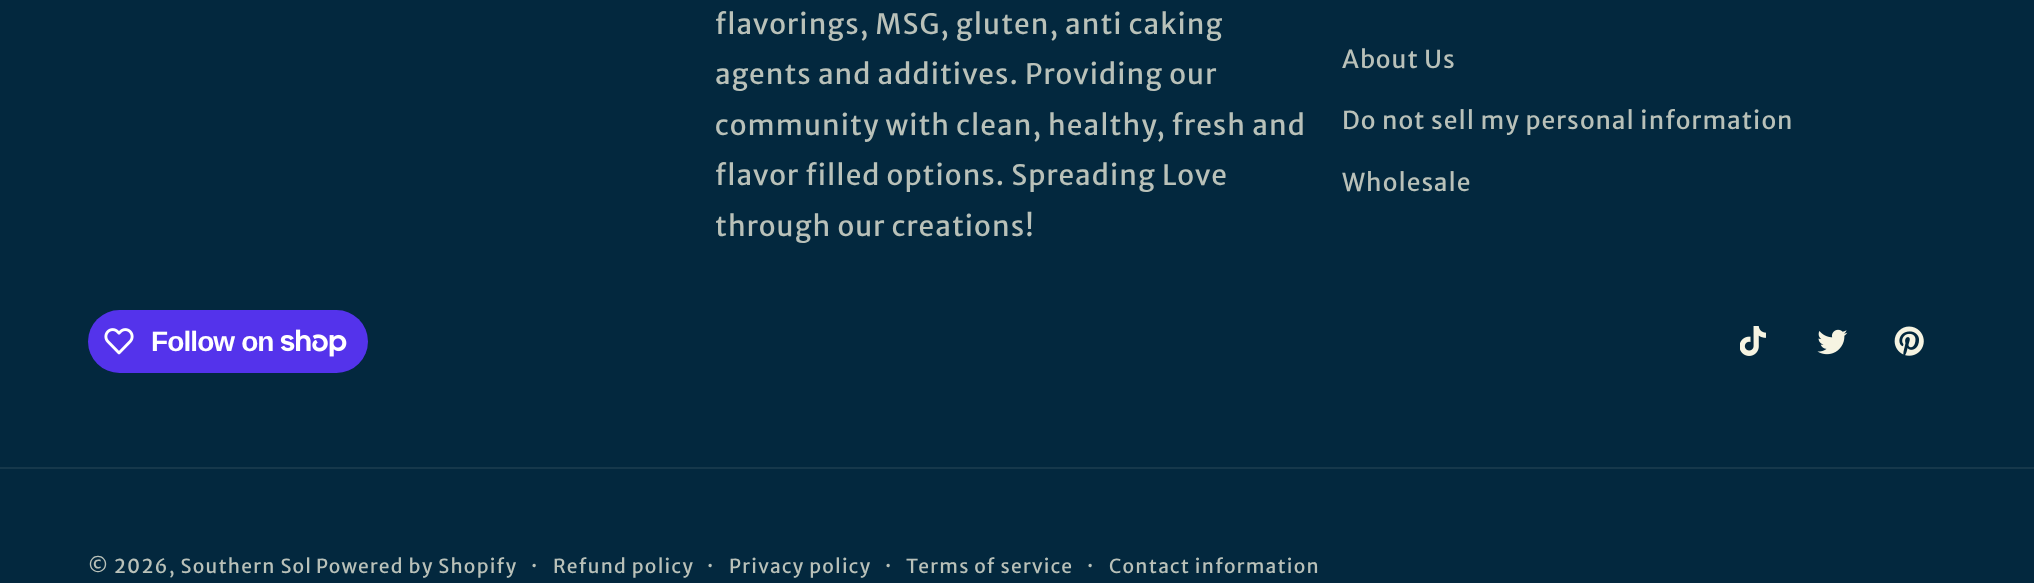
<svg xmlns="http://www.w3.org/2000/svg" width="2034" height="583">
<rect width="100%" height="100%" fill="#03283e"/>
<text x="715" y="34" style="font-family:Merriweather Sans;font-size:28px;letter-spacing:1.05px;fill:#b9c1b9">flavorings, MSG, gluten, anti caking</text>
<text x="715" y="84" style="font-family:Merriweather Sans;font-size:28px;letter-spacing:1.05px;fill:#b9c1b9">agents and additives. Providing our</text>
<text x="715" y="135" style="font-family:Merriweather Sans;font-size:28px;letter-spacing:1.05px;fill:#b9c1b9">community with clean, healthy, fresh and</text>
<text x="715" y="185" style="font-family:Merriweather Sans;font-size:28px;letter-spacing:1.05px;fill:#b9c1b9">flavor filled options. Spreading Love</text>
<text x="715" y="236" style="font-family:Merriweather Sans;font-size:28px;letter-spacing:1.05px;fill:#b9c1b9">through our creations!</text>
<text x="1342" y="68" style="font-family:Merriweather Sans;font-size:24.5px;letter-spacing:1.05px;fill:#b9c1b9">About Us</text>
<text x="1342" y="129" style="font-family:Merriweather Sans;font-size:24.5px;letter-spacing:1.05px;fill:#b9c1b9">Do not sell my personal information</text>
<text x="1342" y="191" style="font-family:Merriweather Sans;font-size:24.5px;letter-spacing:1.05px;fill:#b9c1b9">Wholesale</text>
<rect x="88" y="310" width="280" height="63" rx="31.5" fill="#5433eb"/>
<image x="104" y="328" width="30" height="27" href="media/1.png"/>
<text x="151" y="351" style="font-family:Liberation Sans;font-size:28px;font-weight:bold;letter-spacing:-0.9px;fill:#fff">Follow on</text>
<image x="280" y="329" width="67" height="28" href="media/2.png"/>
<image x="1740" y="326" width="26" height="30" href="media/3.png"/>
<image x="1817" y="329" width="31" height="26" href="media/4.png"/>
<image x="1894" y="326" width="30" height="30" href="media/5.png"/>
<rect y="467" width="2034" height="2" fill="#16384b"/>
<text x="88" y="573" style="font-family:Merriweather Sans;font-size:19.25px;letter-spacing:1.25px;fill:#b9c1b9">© 2026, Southern Sol</text>
<text x="316" y="573" style="font-family:Merriweather Sans;font-size:19.25px;letter-spacing:1.25px;fill:#b9c1b9">Powered by Shopify</text>
<text x="531" y="573" style="font-family:Merriweather Sans;font-size:21px;letter-spacing:1.25px;fill:#b9c1b9">·</text>
<text x="553" y="573" style="font-family:Merriweather Sans;font-size:19.25px;letter-spacing:1.25px;fill:#b9c1b9">Refund policy</text>
<text x="707" y="573" style="font-family:Merriweather Sans;font-size:21px;letter-spacing:1.25px;fill:#b9c1b9">·</text>
<text x="729" y="573" style="font-family:Merriweather Sans;font-size:19.25px;letter-spacing:1.25px;fill:#b9c1b9">Privacy policy</text>
<text x="885" y="573" style="font-family:Merriweather Sans;font-size:21px;letter-spacing:1.25px;fill:#b9c1b9">·</text>
<text x="906" y="573" style="font-family:Merriweather Sans;font-size:19.25px;letter-spacing:1.25px;fill:#b9c1b9">Terms of service</text>
<text x="1087" y="573" style="font-family:Merriweather Sans;font-size:21px;letter-spacing:1.25px;fill:#b9c1b9">·</text>
<text x="1109" y="573" style="font-family:Merriweather Sans;font-size:19.25px;letter-spacing:1.25px;fill:#b9c1b9">Contact information</text>
</svg>
